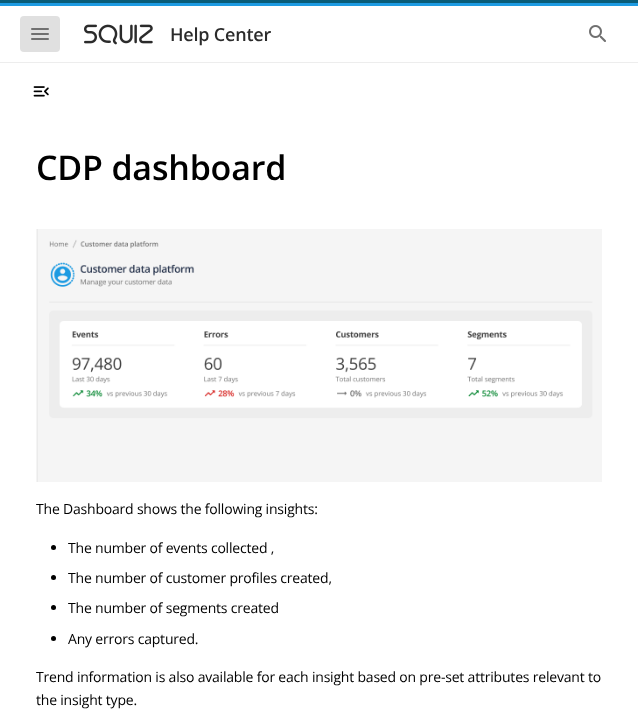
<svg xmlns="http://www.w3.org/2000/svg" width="638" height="709">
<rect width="100%" height="100%" fill="#fff"/>
<rect y="62" width="638" height="1" fill="#ededed"/>
<rect width="638" height="3" fill="#095c78"/>
<rect y="3" width="638" height="3" fill="#1d9be2"/>
<rect x="20" y="16" width="40" height="36" rx="4" fill="#e0e0e0"/>
<image x="31" y="28" width="18" height="12" href="media/1.png"/>
<image x="84" y="24" width="69" height="21" href="media/2.png"/>
<text x="170" y="41" style="font-family:Open Sans;font-size:18px;font-weight:600;letter-spacing:-0.2px;fill:#2b2b2b">Help Center</text>
<image x="589" y="25" width="17" height="17" href="media/3.png"/>
<image x="33" y="86" width="16" height="11" href="media/4.png"/>
<text x="36" y="180" style="font-family:Open Sans;font-size:34px;font-weight:600;letter-spacing:-0.2px;fill:#000">CDP dashboard</text>
<image x="36" y="229" width="566" height="253" href="media/5.png"/>
<text x="36" y="514" style="font-family:Open Sans;font-size:14px;letter-spacing:-0.2px;fill:#000">The Dashboard shows the following insights:</text>
<circle cx="53.5" cy="547.5" r="2.5" fill="#000"/>
<text x="68" y="553" style="font-family:Open Sans;font-size:14px;letter-spacing:-0.2px;fill:#000">The number of events collected ,</text>
<circle cx="53.5" cy="577.5" r="2.5" fill="#000"/>
<text x="68" y="583" style="font-family:Open Sans;font-size:14px;letter-spacing:-0.2px;fill:#000">The number of customer profiles created,</text>
<circle cx="53.5" cy="607.5" r="2.5" fill="#000"/>
<text x="68" y="613" style="font-family:Open Sans;font-size:14px;letter-spacing:-0.2px;fill:#000">The number of segments created</text>
<circle cx="53.5" cy="638.5" r="2.5" fill="#000"/>
<text x="68" y="644" style="font-family:Open Sans;font-size:14px;letter-spacing:-0.2px;fill:#000">Any errors captured.</text>
<text x="36" y="682" style="font-family:Open Sans;font-size:14px;letter-spacing:-0.2px;fill:#000">Trend information is also available for each insight based on pre-set attributes relevant to</text>
<text x="36" y="705" style="font-family:Open Sans;font-size:14px;letter-spacing:-0.2px;fill:#000">the insight type.</text>
</svg>
